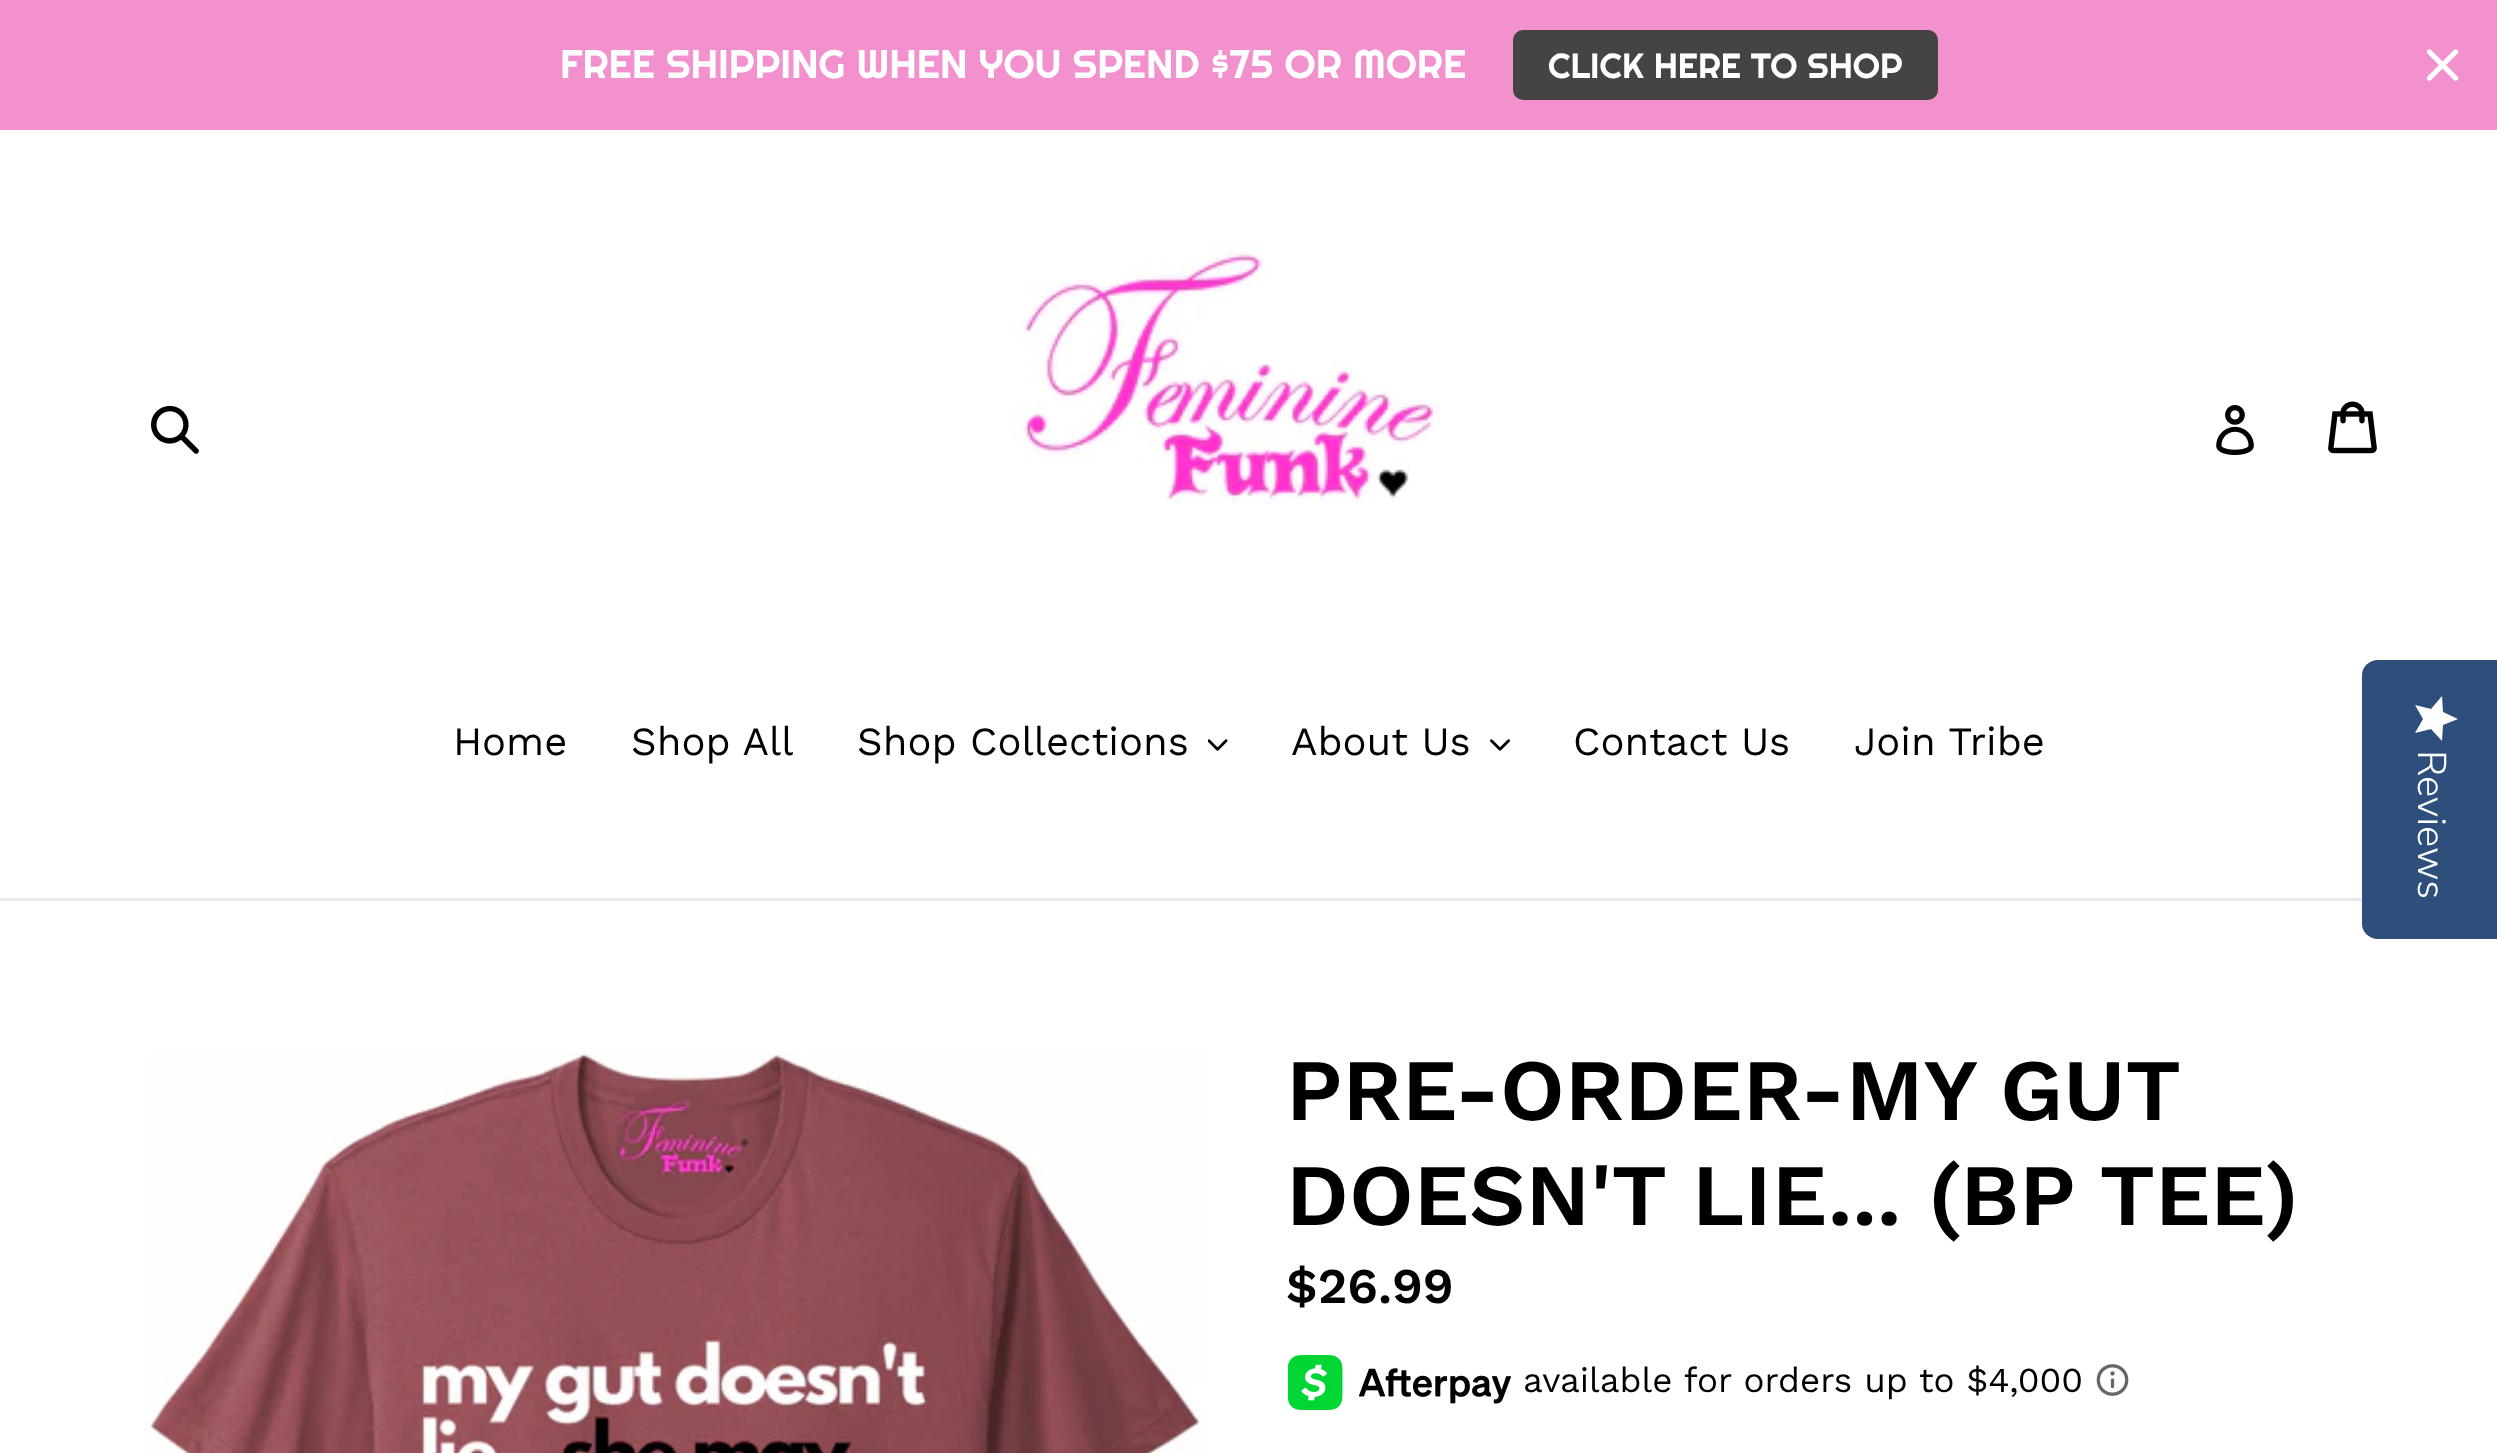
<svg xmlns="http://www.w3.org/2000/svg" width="2497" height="1453">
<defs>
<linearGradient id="g1" gradientUnits="userSpaceOnUse" x1="2458" y1="696" x2="2458" y2="741"><stop offset="1" stop-color="#fff"/><stop offset="1" stop-color="#eaeaea"/></linearGradient>
</defs>
<rect width="100%" height="100%" fill="#fff"/>
<rect width="2497" height="130" fill="#f390ce"/>
<text x="560" y="78" style="font-family:Righteous;font-size:40px;fill:#fff">FREE SHIPPING WHEN YOU SPEND $75 OR MORE</text>
<rect x="1513" y="30" width="425" height="70" rx="10" fill="#454343"/>
<text x="1548" y="78" style="font-family:Righteous;font-size:35px;fill:#fff">CLICK HERE TO SHOP</text>
<image x="2426" y="49" width="33" height="32" href="media/1.png"/>
<image x="151" y="405" width="48" height="49" href="media/2.png"/>
<image x="1010" y="241" width="430" height="263" href="media/3.png"/>
<image x="2216" y="405" width="38" height="50" href="media/4.png"/>
<image x="2328" y="401" width="49" height="53" href="media/5.png"/>
<rect y="898" width="2362" height="3" fill="#e8e9eb"/>
<text x="453" y="755" style="font-family:Work Sans;font-size:40px;fill:#000">Home</text>
<text x="631" y="755" style="font-family:Work Sans;font-size:40px;fill:#000">Shop All</text>
<text x="857" y="755" style="font-family:Work Sans;font-size:40px;fill:#000">Shop Collections</text>
<image x="1208" y="739" width="20" height="12" href="media/6.png"/>
<text x="1291" y="755" style="font-family:Work Sans;font-size:40px;fill:#000">About Us</text>
<image x="1490" y="739" width="20" height="12" href="media/7.png"/>
<text x="1573" y="755" style="font-family:Work Sans;font-size:40px;fill:#000">Contact Us</text>
<text x="1854" y="755" style="font-family:Work Sans;font-size:40px;fill:#000">Join Tribe</text>
<path d="M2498 660v279h-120c-9 0-16-7-16-15v-249c0-8 7-15 16-15z" fill="#2e4f7c"/>
<path d="M2423 719l-8 14l16-4l11 12l1-16l15-6l-15-7l-1-16l-11 13l-16-4z" fill="url(#g1)"/>
<text x="2418" y="750" transform="rotate(90 2418 750)" style="font-family:Nunito Sans;font-size:40px;font-weight:300;fill:#fff">Reviews</text>
<image x="145" y="1053" width="1063" height="400" href="media/8.png"/>
<text x="1286" y="1120" word-spacing="-2" style="font-family:Work Sans;font-size:87.5px;font-weight:600;fill:#000">PRE-ORDER-MY GUT</text>
<text x="1286" y="1225" style="font-family:Work Sans;font-size:87.5px;font-weight:600;fill:#000">DOESN'T LIE... (BP TEE)</text>
<text x="1286" y="1303" style="font-family:Work Sans;font-size:50px;font-weight:600;fill:#000">$26.99</text>
<image x="1288" y="1355" width="223" height="55" href="media/9.png"/>
<text x="1523" y="1392" style="font-family:Work Sans;font-size:35px;fill:#000">available for orders up to $4,000</text>
<image x="2096" y="1364" width="33" height="32" href="media/10.png"/>
</svg>
